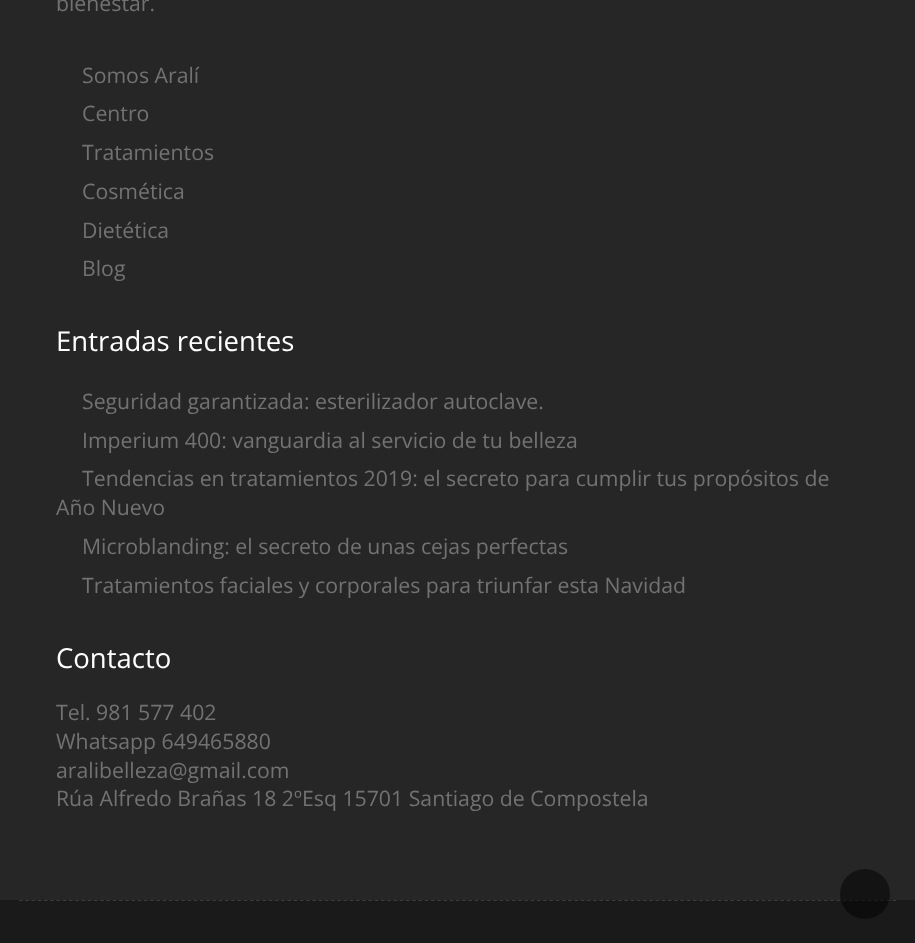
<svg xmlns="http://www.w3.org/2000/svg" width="915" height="943">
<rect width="100%" height="100%" fill="#262626"/>
<text x="56" y="11" style="font-family:Open Sans;font-size:21.25px;fill:#727272">bienestar.</text>
<text x="82" y="83" style="font-family:Open Sans;font-size:21.25px;fill:#727272">Somos Aralí</text>
<text x="82" y="121" style="font-family:Open Sans;font-size:21.25px;fill:#727272">Centro</text>
<text x="82" y="160" style="font-family:Open Sans;font-size:21.25px;fill:#727272">Tratamientos</text>
<text x="82" y="199" style="font-family:Open Sans;font-size:21.25px;fill:#727272">Cosmética</text>
<text x="82" y="238" style="font-family:Open Sans;font-size:21.25px;fill:#727272">Dietética</text>
<text x="82" y="276" style="font-family:Open Sans;font-size:21.25px;fill:#727272">Blog</text>
<text x="56" y="351" style="font-family:Open Sans;font-size:27.5px;fill:#fff">Entradas recientes</text>
<text x="82" y="409" style="font-family:Open Sans;font-size:21.25px;fill:#727272">Seguridad garantizada: esterilizador autoclave.</text>
<text x="82" y="448" style="font-family:Open Sans;font-size:21.25px;fill:#727272">Imperium 400: vanguardia al servicio de tu belleza</text>
<text x="82" y="486" style="font-family:Open Sans;font-size:21.25px;fill:#727272">Tendencias en tratamientos 2019: el secreto para cumplir tus propósitos de</text>
<text x="56" y="515" style="font-family:Open Sans;font-size:21.25px;fill:#727272">Año Nuevo</text>
<text x="82" y="554" style="font-family:Open Sans;font-size:21.25px;fill:#727272">Microblanding: el secreto de unas cejas perfectas</text>
<text x="82" y="593" style="font-family:Open Sans;font-size:21.25px;fill:#727272">Tratamientos faciales y corporales para triunfar esta Navidad</text>
<text x="56" y="668" style="font-family:Open Sans;font-size:27.5px;fill:#fff">Contacto</text>
<text x="56" y="720" style="font-family:Open Sans;font-size:21.25px;fill:#727272">Tel. 981 577 402</text>
<text x="56" y="749" style="font-family:Open Sans;font-size:21.25px;fill:#727272">Whatsapp 649465880</text>
<text x="56" y="778" style="font-family:Open Sans;font-size:21.25px;fill:#727272">aralibelleza@gmail.com</text>
<text x="56" y="806" style="font-family:Open Sans;font-size:21.25px;fill:#727272">Rúa Alfredo Brañas 18 2ºEsq 15701 Santiago de Compostela</text>
<rect y="900" width="915" height="43" fill="#1a1a1a"/>
<path d="M19 900.5h877" fill="none" stroke="#3b3b3b" stroke-width="1.2" stroke-dasharray="3.75 2.49"/>
<circle cx="865" cy="894" r="25" fill="#00000080"/>
</svg>
